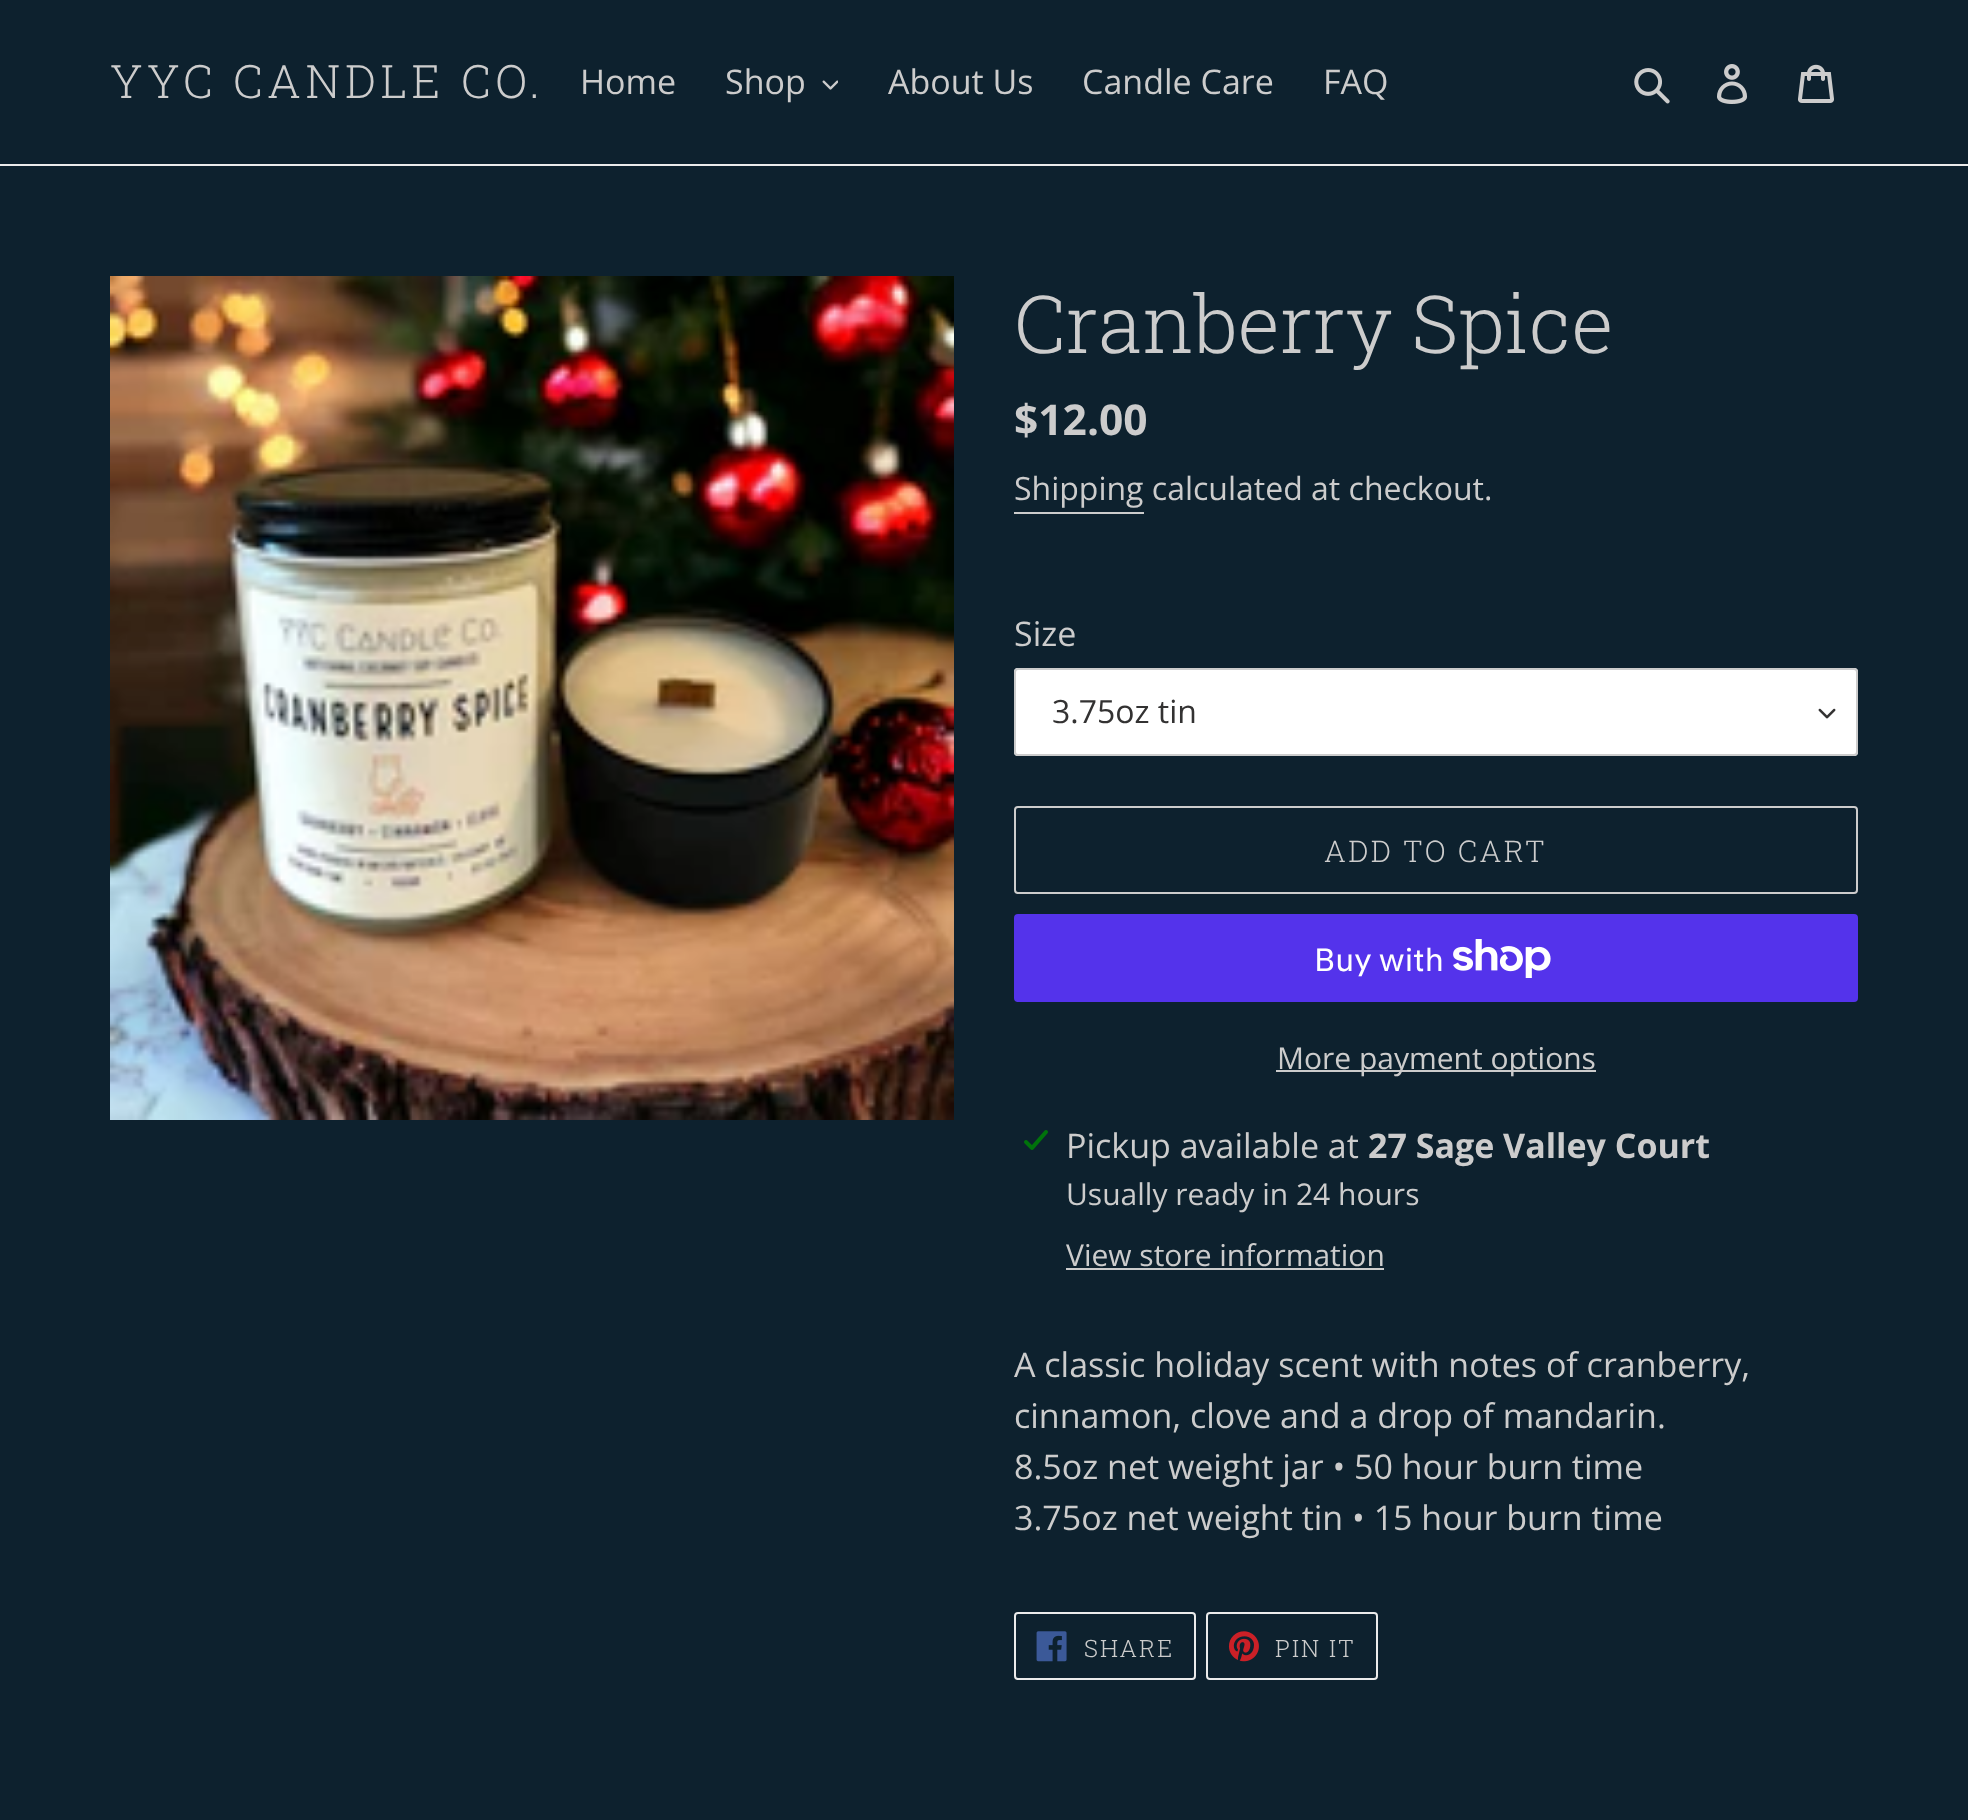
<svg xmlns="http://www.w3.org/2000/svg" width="1968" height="1820">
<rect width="100%" height="100%" fill="#0d212e"/>
<rect y="164" width="1968" height="2" fill="#ebebeb"/>
<text x="110" y="98" style="font-family:Roboto Slab;font-size:46px;font-weight:300;letter-spacing:4.6px;fill:#ccc">YYC CANDLE CO.</text>
<text x="580" y="94" style="font-family:Open Sans;font-size:34px;fill:#ccc">Home</text>
<text x="725" y="94" style="font-family:Open Sans;font-size:34px;fill:#ccc">Shop</text>
<image x="822" y="80" width="16" height="10" href="media/1.png"/>
<text x="888" y="94" style="font-family:Open Sans;font-size:34px;fill:#ccc">About Us</text>
<text x="1082" y="94" style="font-family:Open Sans;font-size:34px;fill:#ccc">Candle Care</text>
<text x="1323" y="94" style="font-family:Open Sans;font-size:34px;fill:#ccc">FAQ</text>
<image x="1634" y="68" width="36" height="36" href="media/2.png"/>
<image x="1717" y="64" width="31" height="40" href="media/3.png"/>
<image x="1798" y="64" width="36" height="39" href="media/4.png"/>
<image x="110" y="276" width="844" height="844" href="media/5.png"/>
<text x="1014" y="353" style="font-family:Roboto Slab;font-size:80px;font-weight:300;fill:#ccc">Cranberry Spice</text>
<text x="1014" y="435" style="font-family:Open Sans;font-size:42.5px;font-weight:bold;fill:#ccc">$12.00</text>
<text x="1014" y="500" style="font-family:Open Sans;font-size:32px;fill:#ccc">Shipping calculated at checkout.</text>
<rect x="1014" y="512" width="130" height="2" fill="#ccc"/>
<text x="1014" y="646" style="font-family:Open Sans;font-size:34px;fill:#ccc">Size</text>
<rect x="1014" y="668" width="844" height="88" rx="4" fill="#fff"/>
<image x="1818" y="708" width="18" height="11" href="media/6.png"/>
<rect x="1015" y="669" width="842" height="86" rx="3" fill="none" stroke="#ccc" stroke-width="2"/>
<text x="1052" y="723" style="font-family:Open Sans;font-size:32px;fill:#333232">3.75oz tin</text>
<rect x="1015" y="807" width="842" height="86" rx="3" fill="none" stroke="#ccc" stroke-width="2"/>
<text x="1324" y="862" style="font-family:Roboto Slab;font-size:30px;font-weight:300;letter-spacing:2.4px;fill:#ccc">ADD TO CART</text>
<rect x="1014" y="914" width="844" height="88" rx="4" fill="#5433eb"/>
<text x="1314" y="971" style="font-family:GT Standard;font-size:32px;fill:#fff">Buy with</text>
<image x="1453" y="939" width="98" height="39" href="media/7.png"/>
<rect x="1276" y="1070" width="320" height="2" fill="#ccc"/>
<text x="1277" y="1069" style="font-family:Open Sans;font-size:30px;fill:#ccc">More payment options</text>
<image x="1024" y="1130" width="24" height="20" href="media/8.png"/>
<text x="1066" y="1158" style="font-family:Open Sans;font-size:34px;fill:#ccc">Pickup available at</text>
<text x="1368" y="1158" style="font-family:Open Sans;font-size:34px;font-weight:bold;fill:#ccc">27 Sage Valley Court</text>
<text x="1066" y="1205" style="font-family:Open Sans;font-size:30px;fill:#ccc">Usually ready in 24 hours</text>
<text x="1066" y="1266" style="font-family:Open Sans;font-size:30px;fill:#ccc">View store information</text>
<rect x="1066" y="1268" width="318" height="2" fill="#ccc"/>
<text x="1014" y="1377" style="font-family:Open Sans;font-size:34px;fill:#ccc">A classic holiday scent with notes of cranberry,</text>
<text x="1014" y="1428" style="font-family:Open Sans;font-size:34px;fill:#ccc">cinnamon, clove and a drop of mandarin.</text>
<text x="1014" y="1479" style="font-family:Open Sans;font-size:34px;fill:#ccc">8.5oz net weight jar • 50 hour burn time</text>
<text x="1014" y="1530" style="font-family:Open Sans;font-size:34px;fill:#ccc">3.75oz net weight tin • 15 hour burn time</text>
<rect x="1015" y="1613" width="180" height="66" rx="3" fill="none" stroke="#ebebeb" stroke-width="2"/>
<image x="1036" y="1631" width="31" height="31" href="media/9.png"/>
<text x="1084" y="1657" style="font-family:Roboto Slab;font-size:24px;font-weight:300;letter-spacing:2px;fill:#ccc">SHARE</text>
<rect x="1207" y="1613" width="170" height="66" rx="3" fill="none" stroke="#ebebeb" stroke-width="2"/>
<image x="1228" y="1631" width="31" height="31" href="media/10.png"/>
<text x="1275" y="1657" style="font-family:Roboto Slab;font-size:24px;font-weight:300;letter-spacing:2px;fill:#ccc">PIN IT</text>
</svg>
